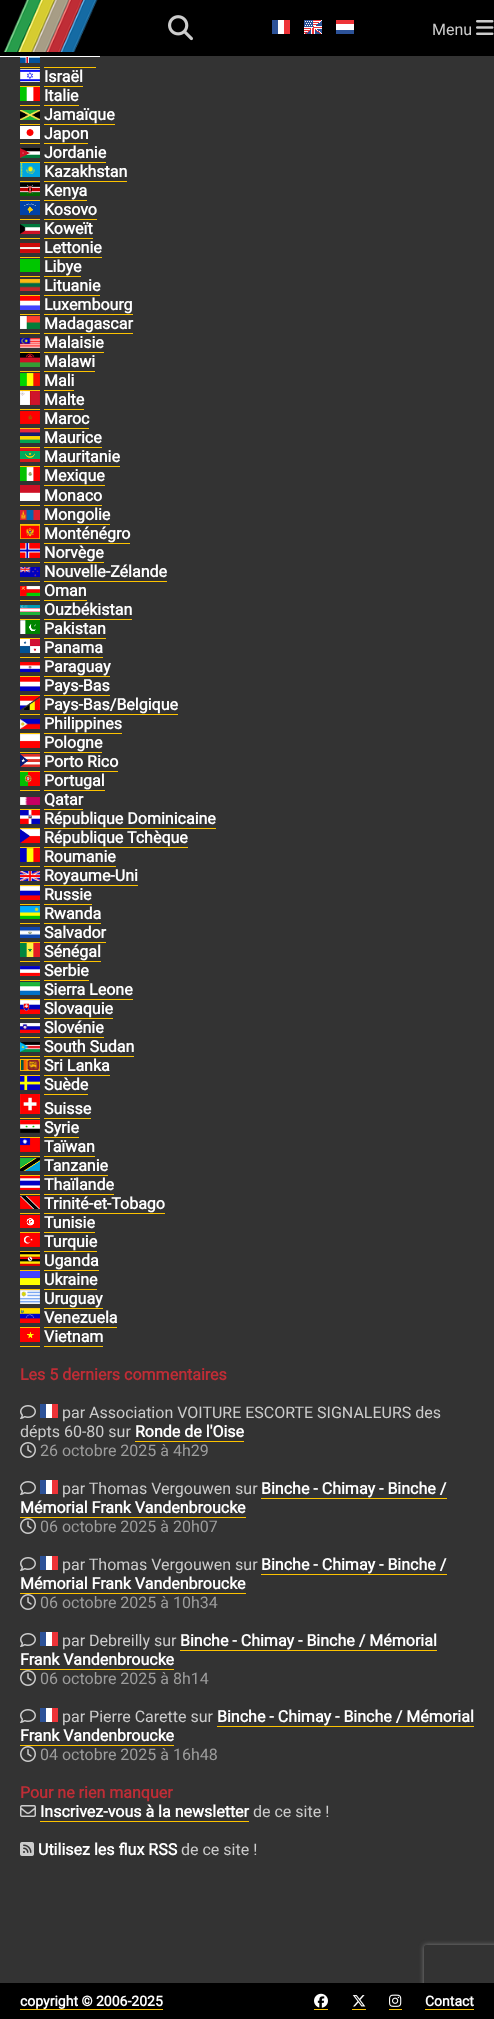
<svg xmlns="http://www.w3.org/2000/svg" width="494" height="2019">
<defs>
<clipPath id="clip1"><path d="M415 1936h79v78h-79zm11 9h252c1 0 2 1 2 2v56c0 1-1 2-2 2h-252c-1 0-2-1-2-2v-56c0-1 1-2 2-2z" clip-rule="evenodd"/></clipPath>
</defs>
<rect width="100%" height="100%" fill="#333"/>
<rect width="494" height="56" fill="#000"/>
<image x="3" y="0" width="95" height="52" href="media/1.png"/>
<rect y="56" width="100" height="1" fill="#fff"/>
<image x="168" y="15" width="25" height="26" href="media/2.png"/>
<image x="272" y="20" width="18" height="14" href="media/3.png"/>
<image x="304" y="20" width="18" height="14" href="media/4.png"/>
<image x="336" y="20" width="18" height="14" href="media/5.png"/>
<text x="432" y="35" style="font-family:Roboto;font-size:16px;fill:#ccc">Menu</text>
<image x="476" y="20" width="18" height="15" href="media/6.png"/>
<image x="20" y="57" width="20" height="6" href="media/7.png"/>
<rect x="20" y="67" width="20" height="1" fill="#fdc300"/>
<rect x="44" y="67" width="52" height="1" fill="#fdc300"/>
<image x="20" y="69" width="20" height="13" href="media/8.png"/>
<text x="44" y="82" style="font-family:Roboto;font-size:16px;font-weight:bold;fill:#fff">Israël</text>
<rect x="44" y="86" width="39" height="1" fill="#fdc300"/>
<rect x="20" y="86" width="20" height="1" fill="#fdc300"/>
<image x="20" y="87" width="20" height="14" href="media/9.png"/>
<text x="44" y="101" style="font-family:Roboto;font-size:16px;font-weight:bold;fill:#fff">Italie</text>
<rect x="44" y="105" width="35" height="1" fill="#fdc300"/>
<rect x="20" y="105" width="20" height="1" fill="#fdc300"/>
<image x="20" y="110" width="20" height="10" href="media/10.png"/>
<text x="44" y="120" style="font-family:Roboto;font-size:16px;font-weight:bold;fill:#fff">Jamaïque</text>
<rect x="44" y="124" width="71" height="1" fill="#fdc300"/>
<rect x="20" y="124" width="20" height="1" fill="#fdc300"/>
<image x="20" y="126" width="20" height="13" href="media/11.png"/>
<text x="44" y="139" style="font-family:Roboto;font-size:16px;font-weight:bold;fill:#fff">Japon</text>
<rect x="44" y="143" width="44" height="1" fill="#fdc300"/>
<rect x="20" y="143" width="20" height="1" fill="#fdc300"/>
<image x="20" y="148" width="20" height="10" href="media/12.png"/>
<text x="44" y="158" style="font-family:Roboto;font-size:16px;font-weight:bold;fill:#fff">Jordanie</text>
<rect x="44" y="162" width="62" height="1" fill="#fdc300"/>
<rect x="20" y="162" width="20" height="1" fill="#fdc300"/>
<image x="20" y="163" width="20" height="14" href="media/13.png"/>
<text x="44" y="177" style="font-family:Roboto;font-size:16px;font-weight:bold;fill:#fff">Kazakhstan</text>
<rect x="44" y="181" width="83" height="1" fill="#fdc300"/>
<rect x="20" y="181" width="20" height="1" fill="#fdc300"/>
<image x="20" y="183" width="20" height="13" href="media/14.png"/>
<text x="44" y="196" style="font-family:Roboto;font-size:16px;font-weight:bold;fill:#fff">Kenya</text>
<rect x="44" y="200" width="43" height="1" fill="#fdc300"/>
<rect x="20" y="200" width="20" height="1" fill="#fdc300"/>
<image x="20" y="201" width="20" height="14" href="media/15.png"/>
<text x="44" y="215" style="font-family:Roboto;font-size:16px;font-weight:bold;fill:#fff">Kosovo</text>
<rect x="44" y="219" width="53" height="1" fill="#fdc300"/>
<rect x="20" y="219" width="20" height="1" fill="#fdc300"/>
<image x="20" y="224" width="20" height="10" href="media/16.png"/>
<text x="44" y="234" style="font-family:Roboto;font-size:16px;font-weight:bold;fill:#fff">Koweït</text>
<rect x="44" y="238" width="49" height="1" fill="#fdc300"/>
<rect x="20" y="238" width="20" height="1" fill="#fdc300"/>
<image x="20" y="243" width="20" height="10" href="media/17.png"/>
<text x="44" y="253" style="font-family:Roboto;font-size:16px;font-weight:bold;fill:#fff">Lettonie</text>
<rect x="44" y="257" width="58" height="1" fill="#fdc300"/>
<rect x="20" y="257" width="20" height="1" fill="#fdc300"/>
<rect x="20" y="259" width="20" height="13" fill="#00c600"/>
<text x="44" y="272" style="font-family:Roboto;font-size:16px;font-weight:bold;fill:#fff">Libye</text>
<rect x="44" y="276" width="37" height="1" fill="#fdc300"/>
<rect x="20" y="276" width="20" height="1" fill="#fdc300"/>
<image x="20" y="279" width="20" height="12" href="media/18.png"/>
<text x="44" y="291" style="font-family:Roboto;font-size:16px;font-weight:bold;fill:#fff">Lituanie</text>
<rect x="44" y="295" width="56" height="1" fill="#fdc300"/>
<rect x="20" y="295" width="20" height="1" fill="#fdc300"/>
<image x="20" y="296" width="20" height="14" href="media/19.png"/>
<text x="44" y="310" style="font-family:Roboto;font-size:16px;font-weight:bold;fill:#fff">Luxembourg</text>
<rect x="44" y="314" width="89" height="1" fill="#fdc300"/>
<rect x="20" y="314" width="20" height="1" fill="#fdc300"/>
<image x="20" y="316" width="20" height="13" href="media/20.png"/>
<text x="44" y="329" style="font-family:Roboto;font-size:16px;font-weight:bold;fill:#fff">Madagascar</text>
<rect x="44" y="333" width="89" height="1" fill="#fdc300"/>
<rect x="20" y="333" width="20" height="1" fill="#fdc300"/>
<image x="20" y="338" width="20" height="10" href="media/21.png"/>
<text x="44" y="348" style="font-family:Roboto;font-size:16px;font-weight:bold;fill:#fff">Malaisie</text>
<rect x="44" y="352" width="60" height="1" fill="#fdc300"/>
<rect x="20" y="352" width="20" height="1" fill="#fdc300"/>
<image x="20" y="353" width="20" height="14" href="media/22.png"/>
<text x="44" y="367" style="font-family:Roboto;font-size:16px;font-weight:bold;fill:#fff">Malawi</text>
<rect x="44" y="371" width="51" height="1" fill="#fdc300"/>
<rect x="20" y="371" width="20" height="1" fill="#fdc300"/>
<image x="20" y="373" width="20" height="13" href="media/23.png"/>
<text x="44" y="386" style="font-family:Roboto;font-size:16px;font-weight:bold;fill:#fff">Mali</text>
<rect x="44" y="390" width="30" height="1" fill="#fdc300"/>
<rect x="20" y="390" width="20" height="1" fill="#fdc300"/>
<image x="20" y="391" width="20" height="14" href="media/24.png"/>
<text x="44" y="405" style="font-family:Roboto;font-size:16px;font-weight:bold;fill:#fff">Malte</text>
<rect x="44" y="409" width="40" height="1" fill="#fdc300"/>
<rect x="20" y="409" width="20" height="1" fill="#fdc300"/>
<image x="20" y="411" width="20" height="13" href="media/25.png"/>
<text x="44" y="424" style="font-family:Roboto;font-size:16px;font-weight:bold;fill:#fff">Maroc</text>
<rect x="44" y="428" width="45" height="1" fill="#fdc300"/>
<rect x="20" y="428" width="20" height="1" fill="#fdc300"/>
<image x="20" y="429" width="20" height="14" href="media/26.png"/>
<text x="44" y="443" style="font-family:Roboto;font-size:16px;font-weight:bold;fill:#fff">Maurice</text>
<rect x="44" y="447" width="58" height="1" fill="#fdc300"/>
<rect x="20" y="447" width="20" height="1" fill="#fdc300"/>
<image x="20" y="448" width="20" height="14" href="media/27.png"/>
<text x="44" y="462" style="font-family:Roboto;font-size:16px;font-weight:bold;fill:#fff">Mauritanie</text>
<rect x="44" y="466" width="76" height="1" fill="#fdc300"/>
<rect x="20" y="466" width="20" height="1" fill="#fdc300"/>
<image x="20" y="467" width="20" height="14" href="media/28.png"/>
<text x="44" y="481" style="font-family:Roboto;font-size:16px;font-weight:bold;fill:#fff">Mexique</text>
<rect x="44" y="485" width="61" height="1" fill="#fdc300"/>
<image x="20" y="485" width="20" height="16" href="media/29.png"/>
<text x="44" y="501" style="font-family:Roboto;font-size:16px;font-weight:bold;fill:#fff">Monaco</text>
<rect x="44" y="505" width="58" height="1" fill="#fdc300"/>
<rect x="20" y="505" width="20" height="1" fill="#fdc300"/>
<image x="20" y="510" width="20" height="10" href="media/30.png"/>
<text x="44" y="520" style="font-family:Roboto;font-size:16px;font-weight:bold;fill:#fff">Mongolie</text>
<rect x="44" y="524" width="66" height="1" fill="#fdc300"/>
<rect x="20" y="524" width="20" height="1" fill="#fdc300"/>
<image x="20" y="525" width="20" height="14" href="media/31.png"/>
<text x="44" y="539" style="font-family:Roboto;font-size:16px;font-weight:bold;fill:#fff">Monténégro</text>
<rect x="44" y="543" width="86" height="1" fill="#fdc300"/>
<image x="20" y="543" width="20" height="15" href="media/32.png"/>
<text x="44" y="558" style="font-family:Roboto;font-size:16px;font-weight:bold;fill:#fff">Norvège</text>
<rect x="44" y="562" width="60" height="1" fill="#fdc300"/>
<rect x="20" y="562" width="20" height="1" fill="#fdc300"/>
<image x="20" y="567" width="20" height="10" href="media/33.png"/>
<text x="44" y="577" style="font-family:Roboto;font-size:16px;font-weight:bold;fill:#fff">Nouvelle-Zélande</text>
<rect x="44" y="581" width="123" height="1" fill="#fdc300"/>
<rect x="20" y="581" width="20" height="1" fill="#fdc300"/>
<image x="20" y="586" width="20" height="10" href="media/34.png"/>
<text x="44" y="596" style="font-family:Roboto;font-size:16px;font-weight:bold;fill:#fff">Oman</text>
<rect x="44" y="600" width="43" height="1" fill="#fdc300"/>
<rect x="20" y="600" width="20" height="1" fill="#fdc300"/>
<image x="20" y="605" width="20" height="10" href="media/35.png"/>
<text x="44" y="615" style="font-family:Roboto;font-size:16px;font-weight:bold;fill:#fff">Ouzbékistan</text>
<rect x="44" y="619" width="88" height="1" fill="#fdc300"/>
<rect x="20" y="619" width="20" height="1" fill="#fdc300"/>
<image x="20" y="620" width="20" height="14" href="media/36.png"/>
<text x="44" y="634" style="font-family:Roboto;font-size:16px;font-weight:bold;fill:#fff">Pakistan</text>
<rect x="44" y="638" width="62" height="1" fill="#fdc300"/>
<rect x="20" y="638" width="20" height="1" fill="#fdc300"/>
<image x="20" y="639" width="20" height="14" href="media/37.png"/>
<text x="44" y="653" style="font-family:Roboto;font-size:16px;font-weight:bold;fill:#fff">Panama</text>
<rect x="44" y="657" width="59" height="1" fill="#fdc300"/>
<rect x="20" y="657" width="20" height="1" fill="#fdc300"/>
<image x="20" y="662" width="20" height="10" href="media/38.png"/>
<text x="44" y="672" style="font-family:Roboto;font-size:16px;font-weight:bold;fill:#fff">Paraguay</text>
<rect x="44" y="676" width="66" height="1" fill="#fdc300"/>
<rect x="20" y="676" width="20" height="1" fill="#fdc300"/>
<image x="20" y="677" width="20" height="14" href="media/39.png"/>
<text x="44" y="691" style="font-family:Roboto;font-size:16px;font-weight:bold;fill:#fff">Pays-Bas</text>
<rect x="44" y="695" width="66" height="1" fill="#fdc300"/>
<rect x="20" y="695" width="20" height="1" fill="#fdc300"/>
<image x="20" y="696" width="20" height="14" href="media/40.png"/>
<text x="44" y="710" style="font-family:Roboto;font-size:16px;font-weight:bold;fill:#fff">Pays-Bas/Belgique</text>
<rect x="44" y="714" width="134" height="1" fill="#fdc300"/>
<rect x="20" y="714" width="20" height="1" fill="#fdc300"/>
<image x="20" y="719" width="20" height="10" href="media/41.png"/>
<text x="44" y="729" style="font-family:Roboto;font-size:16px;font-weight:bold;fill:#fff">Philippines</text>
<rect x="44" y="733" width="78" height="1" fill="#fdc300"/>
<rect x="20" y="733" width="20" height="1" fill="#fdc300"/>
<image x="20" y="734" width="20" height="14" href="media/42.png"/>
<text x="44" y="748" style="font-family:Roboto;font-size:16px;font-weight:bold;fill:#fff">Pologne</text>
<rect x="44" y="752" width="58" height="1" fill="#fdc300"/>
<rect x="20" y="752" width="20" height="1" fill="#fdc300"/>
<image x="20" y="754" width="20" height="13" href="media/43.png"/>
<text x="44" y="767" style="font-family:Roboto;font-size:16px;font-weight:bold;fill:#fff">Porto Rico</text>
<rect x="44" y="771" width="74" height="1" fill="#fdc300"/>
<rect x="20" y="771" width="20" height="1" fill="#fdc300"/>
<image x="20" y="772" width="20" height="14" href="media/44.png"/>
<text x="44" y="786" style="font-family:Roboto;font-size:16px;font-weight:bold;fill:#fff">Portugal</text>
<rect x="44" y="790" width="61" height="1" fill="#fdc300"/>
<rect x="20" y="790" width="20" height="1" fill="#fdc300"/>
<image x="20" y="797" width="20" height="8" href="media/45.png"/>
<text x="44" y="805" style="font-family:Roboto;font-size:16px;font-weight:bold;fill:#fff">Qatar</text>
<rect x="44" y="809" width="39" height="1" fill="#fdc300"/>
<rect x="20" y="809" width="20" height="1" fill="#fdc300"/>
<image x="20" y="810" width="20" height="14" href="media/46.png"/>
<text x="44" y="824" style="font-family:Roboto;font-size:16px;font-weight:bold;fill:#fff">République Dominicaine</text>
<rect x="44" y="828" width="172" height="1" fill="#fdc300"/>
<rect x="20" y="828" width="20" height="1" fill="#fdc300"/>
<image x="20" y="829" width="20" height="14" href="media/47.png"/>
<text x="44" y="843" style="font-family:Roboto;font-size:16px;font-weight:bold;fill:#fff">République Tchèque</text>
<rect x="44" y="847" width="144" height="1" fill="#fdc300"/>
<rect x="20" y="847" width="20" height="1" fill="#fdc300"/>
<image x="20" y="848" width="20" height="14" href="media/48.png"/>
<text x="44" y="862" style="font-family:Roboto;font-size:16px;font-weight:bold;fill:#fff">Roumanie</text>
<rect x="44" y="866" width="72" height="1" fill="#fdc300"/>
<rect x="20" y="866" width="20" height="1" fill="#fdc300"/>
<image x="20" y="871" width="20" height="10" href="media/49.png"/>
<text x="44" y="881" style="font-family:Roboto;font-size:16px;font-weight:bold;fill:#fff">Royaume-Uni</text>
<rect x="44" y="885" width="94" height="1" fill="#fdc300"/>
<rect x="20" y="885" width="20" height="1" fill="#fdc300"/>
<image x="20" y="886" width="20" height="14" href="media/50.png"/>
<text x="44" y="900" style="font-family:Roboto;font-size:16px;font-weight:bold;fill:#fff">Russie</text>
<rect x="44" y="904" width="48" height="1" fill="#fdc300"/>
<rect x="20" y="904" width="20" height="1" fill="#fdc300"/>
<image x="20" y="906" width="20" height="13" href="media/51.png"/>
<text x="44" y="919" style="font-family:Roboto;font-size:16px;font-weight:bold;fill:#fff">Rwanda</text>
<rect x="44" y="923" width="57" height="1" fill="#fdc300"/>
<rect x="20" y="923" width="20" height="1" fill="#fdc300"/>
<image x="20" y="927" width="20" height="11" href="media/52.png"/>
<text x="44" y="938" style="font-family:Roboto;font-size:16px;font-weight:bold;fill:#fff">Salvador</text>
<rect x="44" y="942" width="62" height="1" fill="#fdc300"/>
<rect x="20" y="942" width="20" height="1" fill="#fdc300"/>
<image x="20" y="943" width="20" height="14" href="media/53.png"/>
<text x="44" y="957" style="font-family:Roboto;font-size:16px;font-weight:bold;fill:#fff">Sénégal</text>
<rect x="44" y="961" width="57" height="1" fill="#fdc300"/>
<rect x="20" y="961" width="20" height="1" fill="#fdc300"/>
<image x="20" y="966" width="20" height="10" href="media/54.png"/>
<text x="44" y="976" style="font-family:Roboto;font-size:16px;font-weight:bold;fill:#fff">Serbie</text>
<rect x="44" y="980" width="45" height="1" fill="#fdc300"/>
<rect x="20" y="980" width="20" height="1" fill="#fdc300"/>
<image x="20" y="982" width="20" height="13" href="media/55.png"/>
<text x="44" y="995" style="font-family:Roboto;font-size:16px;font-weight:bold;fill:#fff">Sierra Leone</text>
<rect x="44" y="999" width="89" height="1" fill="#fdc300"/>
<rect x="20" y="999" width="20" height="1" fill="#fdc300"/>
<image x="20" y="1000" width="20" height="14" href="media/56.png"/>
<text x="44" y="1014" style="font-family:Roboto;font-size:16px;font-weight:bold;fill:#fff">Slovaquie</text>
<rect x="44" y="1018" width="69" height="1" fill="#fdc300"/>
<rect x="20" y="1018" width="20" height="1" fill="#fdc300"/>
<image x="20" y="1023" width="20" height="10" href="media/57.png"/>
<text x="44" y="1033" style="font-family:Roboto;font-size:16px;font-weight:bold;fill:#fff">Slovénie</text>
<rect x="44" y="1037" width="60" height="1" fill="#fdc300"/>
<rect x="20" y="1037" width="20" height="1" fill="#fdc300"/>
<image x="20" y="1042" width="20" height="10" href="media/58.png"/>
<text x="44" y="1052" style="font-family:Roboto;font-size:16px;font-weight:bold;fill:#fff">South Sudan</text>
<rect x="44" y="1056" width="90" height="1" fill="#fdc300"/>
<rect x="20" y="1056" width="20" height="1" fill="#fdc300"/>
<image x="20" y="1059" width="20" height="12" href="media/59.png"/>
<text x="44" y="1071" style="font-family:Roboto;font-size:16px;font-weight:bold;fill:#fff">Sri Lanka</text>
<rect x="44" y="1075" width="66" height="1" fill="#fdc300"/>
<rect x="20" y="1075" width="20" height="1" fill="#fdc300"/>
<image x="20" y="1076" width="20" height="14" href="media/60.png"/>
<text x="44" y="1090" style="font-family:Roboto;font-size:16px;font-weight:bold;fill:#fff">Suède</text>
<rect x="44" y="1094" width="44" height="1" fill="#fdc300"/>
<image x="20" y="1094" width="20" height="20" href="media/61.png"/>
<text x="44" y="1114" style="font-family:Roboto;font-size:16px;font-weight:bold;fill:#fff">Suisse</text>
<rect x="44" y="1118" width="47" height="1" fill="#fdc300"/>
<rect x="20" y="1118" width="20" height="1" fill="#fdc300"/>
<image x="20" y="1120" width="20" height="13" href="media/62.png"/>
<text x="44" y="1133" style="font-family:Roboto;font-size:16px;font-weight:bold;fill:#fff">Syrie</text>
<rect x="44" y="1137" width="35" height="1" fill="#fdc300"/>
<rect x="20" y="1137" width="20" height="1" fill="#fdc300"/>
<image x="20" y="1138" width="20" height="14" href="media/63.png"/>
<text x="44" y="1152" style="font-family:Roboto;font-size:16px;font-weight:bold;fill:#fff">Taïwan</text>
<rect x="44" y="1156" width="51" height="1" fill="#fdc300"/>
<rect x="20" y="1156" width="20" height="1" fill="#fdc300"/>
<image x="20" y="1158" width="20" height="13" href="media/64.png"/>
<text x="44" y="1171" style="font-family:Roboto;font-size:16px;font-weight:bold;fill:#fff">Tanzanie</text>
<rect x="44" y="1175" width="64" height="1" fill="#fdc300"/>
<rect x="20" y="1175" width="20" height="1" fill="#fdc300"/>
<image x="20" y="1176" width="20" height="14" href="media/65.png"/>
<text x="44" y="1190" style="font-family:Roboto;font-size:16px;font-weight:bold;fill:#fff">Thaïlande</text>
<rect x="44" y="1194" width="70" height="1" fill="#fdc300"/>
<rect x="20" y="1194" width="20" height="1" fill="#fdc300"/>
<image x="20" y="1196" width="20" height="13" href="media/66.png"/>
<text x="44" y="1209" style="font-family:Roboto;font-size:16px;font-weight:bold;fill:#fff">Trinité-et-Tobago</text>
<rect x="44" y="1213" width="121" height="1" fill="#fdc300"/>
<rect x="20" y="1213" width="20" height="1" fill="#fdc300"/>
<image x="20" y="1215" width="20" height="13" href="media/67.png"/>
<text x="44" y="1228" style="font-family:Roboto;font-size:16px;font-weight:bold;fill:#fff">Tunisie</text>
<rect x="44" y="1232" width="51" height="1" fill="#fdc300"/>
<rect x="20" y="1232" width="20" height="1" fill="#fdc300"/>
<image x="20" y="1233" width="20" height="14" href="media/68.png"/>
<text x="44" y="1247" style="font-family:Roboto;font-size:16px;font-weight:bold;fill:#fff">Turquie</text>
<rect x="44" y="1251" width="53" height="1" fill="#fdc300"/>
<rect x="20" y="1251" width="20" height="1" fill="#fdc300"/>
<image x="20" y="1252" width="20" height="14" href="media/69.png"/>
<text x="44" y="1266" style="font-family:Roboto;font-size:16px;font-weight:bold;fill:#fff">Uganda</text>
<rect x="44" y="1270" width="55" height="1" fill="#fdc300"/>
<rect x="20" y="1270" width="20" height="1" fill="#fdc300"/>
<image x="20" y="1271" width="20" height="14" href="media/70.png"/>
<text x="44" y="1285" style="font-family:Roboto;font-size:16px;font-weight:bold;fill:#fff">Ukraine</text>
<rect x="44" y="1289" width="53" height="1" fill="#fdc300"/>
<rect x="20" y="1289" width="20" height="1" fill="#fdc300"/>
<image x="20" y="1290" width="20" height="14" href="media/71.png"/>
<text x="44" y="1304" style="font-family:Roboto;font-size:16px;font-weight:bold;fill:#fff">Uruguay</text>
<rect x="44" y="1308" width="59" height="1" fill="#fdc300"/>
<rect x="20" y="1308" width="20" height="1" fill="#fdc300"/>
<image x="20" y="1309" width="20" height="14" href="media/72.png"/>
<text x="44" y="1323" style="font-family:Roboto;font-size:16px;font-weight:bold;fill:#fff">Venezuela</text>
<rect x="44" y="1327" width="73" height="1" fill="#fdc300"/>
<rect x="20" y="1327" width="20" height="1" fill="#fdc300"/>
<image x="20" y="1328" width="20" height="14" href="media/73.png"/>
<text x="44" y="1342" style="font-family:Roboto;font-size:16px;font-weight:bold;fill:#fff">Vietnam</text>
<rect x="44" y="1346" width="59" height="1" fill="#fdc300"/>
<rect x="20" y="1346" width="20" height="1" fill="#fdc300"/>
<text x="20" y="1380" style="font-family:Roboto;font-size:16px;font-weight:bold;fill:#bf2d36">Les 5 derniers commentaires</text>
<image x="20" y="1405" width="16" height="14" href="media/74.png"/>
<image x="40" y="1404" width="18" height="14" href="media/3.png"/>
<text x="62" y="1418" style="font-family:Roboto;font-size:16px;fill:#ccc">par Association VOITURE ESCORTE SIGNALEURS des</text>
<text x="20" y="1437" style="font-family:Roboto;font-size:16px;fill:#ccc">dépts 60-80 sur</text>
<text x="135" y="1437" style="font-family:Roboto;font-size:16px;font-weight:bold;fill:#fff">Ronde de l'Oise</text>
<rect x="135" y="1441" width="109" height="1" fill="#fdc300"/>
<image x="20" y="1442" width="16" height="16" href="media/75.png"/>
<text x="40" y="1456" style="font-family:Roboto;font-size:16px;fill:#9d9d9d">26 octobre 2025 à 4h29</text>
<image x="20" y="1481" width="16" height="14" href="media/74.png"/>
<image x="40" y="1480" width="18" height="14" href="media/3.png"/>
<text x="62" y="1494" style="font-family:Roboto;font-size:16px;fill:#ccc">par Thomas Vergouwen sur</text>
<text x="261" y="1494" style="font-family:Roboto;font-size:16px;font-weight:bold;fill:#fff">Binche - Chimay - Binche /</text>
<rect x="261" y="1498" width="186" height="1" fill="#fdc300"/>
<text x="20" y="1513" style="font-family:Roboto;font-size:16px;font-weight:bold;fill:#fff">Mémorial Frank Vandenbroucke</text>
<rect x="20" y="1517" width="226" height="1" fill="#fdc300"/>
<image x="20" y="1518" width="16" height="16" href="media/75.png"/>
<text x="40" y="1532" style="font-family:Roboto;font-size:16px;fill:#9d9d9d">06 octobre 2025 à 20h07</text>
<image x="20" y="1557" width="16" height="14" href="media/74.png"/>
<image x="40" y="1556" width="18" height="14" href="media/3.png"/>
<text x="62" y="1570" style="font-family:Roboto;font-size:16px;fill:#ccc">par Thomas Vergouwen sur</text>
<text x="261" y="1570" style="font-family:Roboto;font-size:16px;font-weight:bold;fill:#fff">Binche - Chimay - Binche /</text>
<rect x="261" y="1574" width="186" height="1" fill="#fdc300"/>
<text x="20" y="1589" style="font-family:Roboto;font-size:16px;font-weight:bold;fill:#fff">Mémorial Frank Vandenbroucke</text>
<rect x="20" y="1593" width="226" height="1" fill="#fdc300"/>
<image x="20" y="1594" width="16" height="16" href="media/75.png"/>
<text x="40" y="1608" style="font-family:Roboto;font-size:16px;fill:#9d9d9d">06 octobre 2025 à 10h34</text>
<image x="20" y="1633" width="16" height="14" href="media/74.png"/>
<image x="40" y="1632" width="18" height="14" href="media/3.png"/>
<text x="62" y="1646" style="font-family:Roboto;font-size:16px;fill:#ccc">par Debreilly sur</text>
<text x="180" y="1646" style="font-family:Roboto;font-size:16px;font-weight:bold;fill:#fff">Binche - Chimay - Binche / Mémorial</text>
<rect x="180" y="1650" width="257" height="1" fill="#fdc300"/>
<text x="20" y="1665" style="font-family:Roboto;font-size:16px;font-weight:bold;fill:#fff">Frank Vandenbroucke</text>
<rect x="20" y="1669" width="154" height="1" fill="#fdc300"/>
<image x="20" y="1670" width="16" height="16" href="media/75.png"/>
<text x="40" y="1684" style="font-family:Roboto;font-size:16px;fill:#9d9d9d">06 octobre 2025 à 8h14</text>
<image x="20" y="1709" width="16" height="14" href="media/74.png"/>
<image x="40" y="1708" width="18" height="14" href="media/3.png"/>
<text x="62" y="1722" style="font-family:Roboto;font-size:16px;fill:#ccc">par Pierre Carette sur</text>
<text x="217" y="1722" style="font-family:Roboto;font-size:16px;font-weight:bold;fill:#fff">Binche - Chimay - Binche / Mémorial</text>
<rect x="217" y="1726" width="257" height="1" fill="#fdc300"/>
<text x="20" y="1741" style="font-family:Roboto;font-size:16px;font-weight:bold;fill:#fff">Frank Vandenbroucke</text>
<rect x="20" y="1745" width="154" height="1" fill="#fdc300"/>
<image x="20" y="1746" width="16" height="16" href="media/75.png"/>
<text x="40" y="1760" style="font-family:Roboto;font-size:16px;fill:#9d9d9d">04 octobre 2025 à 16h48</text>
<text x="20" y="1798" style="font-family:Roboto;font-size:16px;font-weight:bold;fill:#bf2d36">Pour ne rien manquer</text>
<image x="20" y="1805" width="16" height="12" href="media/76.png"/>
<text x="40" y="1817" style="font-family:Roboto;font-size:16px;font-weight:bold;fill:#fff">Inscrivez-vous à la newsletter</text>
<rect x="40" y="1821" width="209" height="1" fill="#fdc300"/>
<text x="253" y="1817" style="font-family:Roboto;font-size:16px;fill:#ccc">de ce site !</text>
<image x="20" y="1842" width="14" height="14" href="media/77.png"/>
<text x="38" y="1855" style="font-family:Roboto;font-size:16px;font-weight:bold;fill:#fff">Utilisez les flux RSS</text>
<text x="181" y="1855" style="font-family:Roboto;font-size:16px;fill:#ccc">de ce site !</text>
<g clip-path="url(#clip1)">
<rect x="424" y="1945" width="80" height="60" rx="2" fill="#808080" filter="blur(2.5px)"/>
</g>
<rect y="1983" width="494" height="36" fill="#000"/>
<text x="20" y="2006" style="font-family:Roboto;font-size:14px;font-weight:bold;fill:#fff">copyright © 2006-2025</text>
<rect x="20" y="2009" width="143" height="1" fill="#fdc300"/>
<rect x="314" y="2009" width="14" height="1" fill="#fdc300"/>
<image x="314" y="1993" width="14" height="15" href="media/78.png"/>
<rect x="352" y="2009" width="14" height="1" fill="#fdc300"/>
<image x="352" y="1995" width="14" height="12" href="media/79.png"/>
<rect x="389" y="2009" width="13" height="1" fill="#fdc300"/>
<image x="389" y="1994" width="13" height="13" href="media/80.png"/>
<text x="425" y="2006" style="font-family:Roboto;font-size:14px;font-weight:bold;fill:#fff">Contact</text>
<rect x="425" y="2009" width="49" height="1" fill="#fdc300"/>
</svg>
